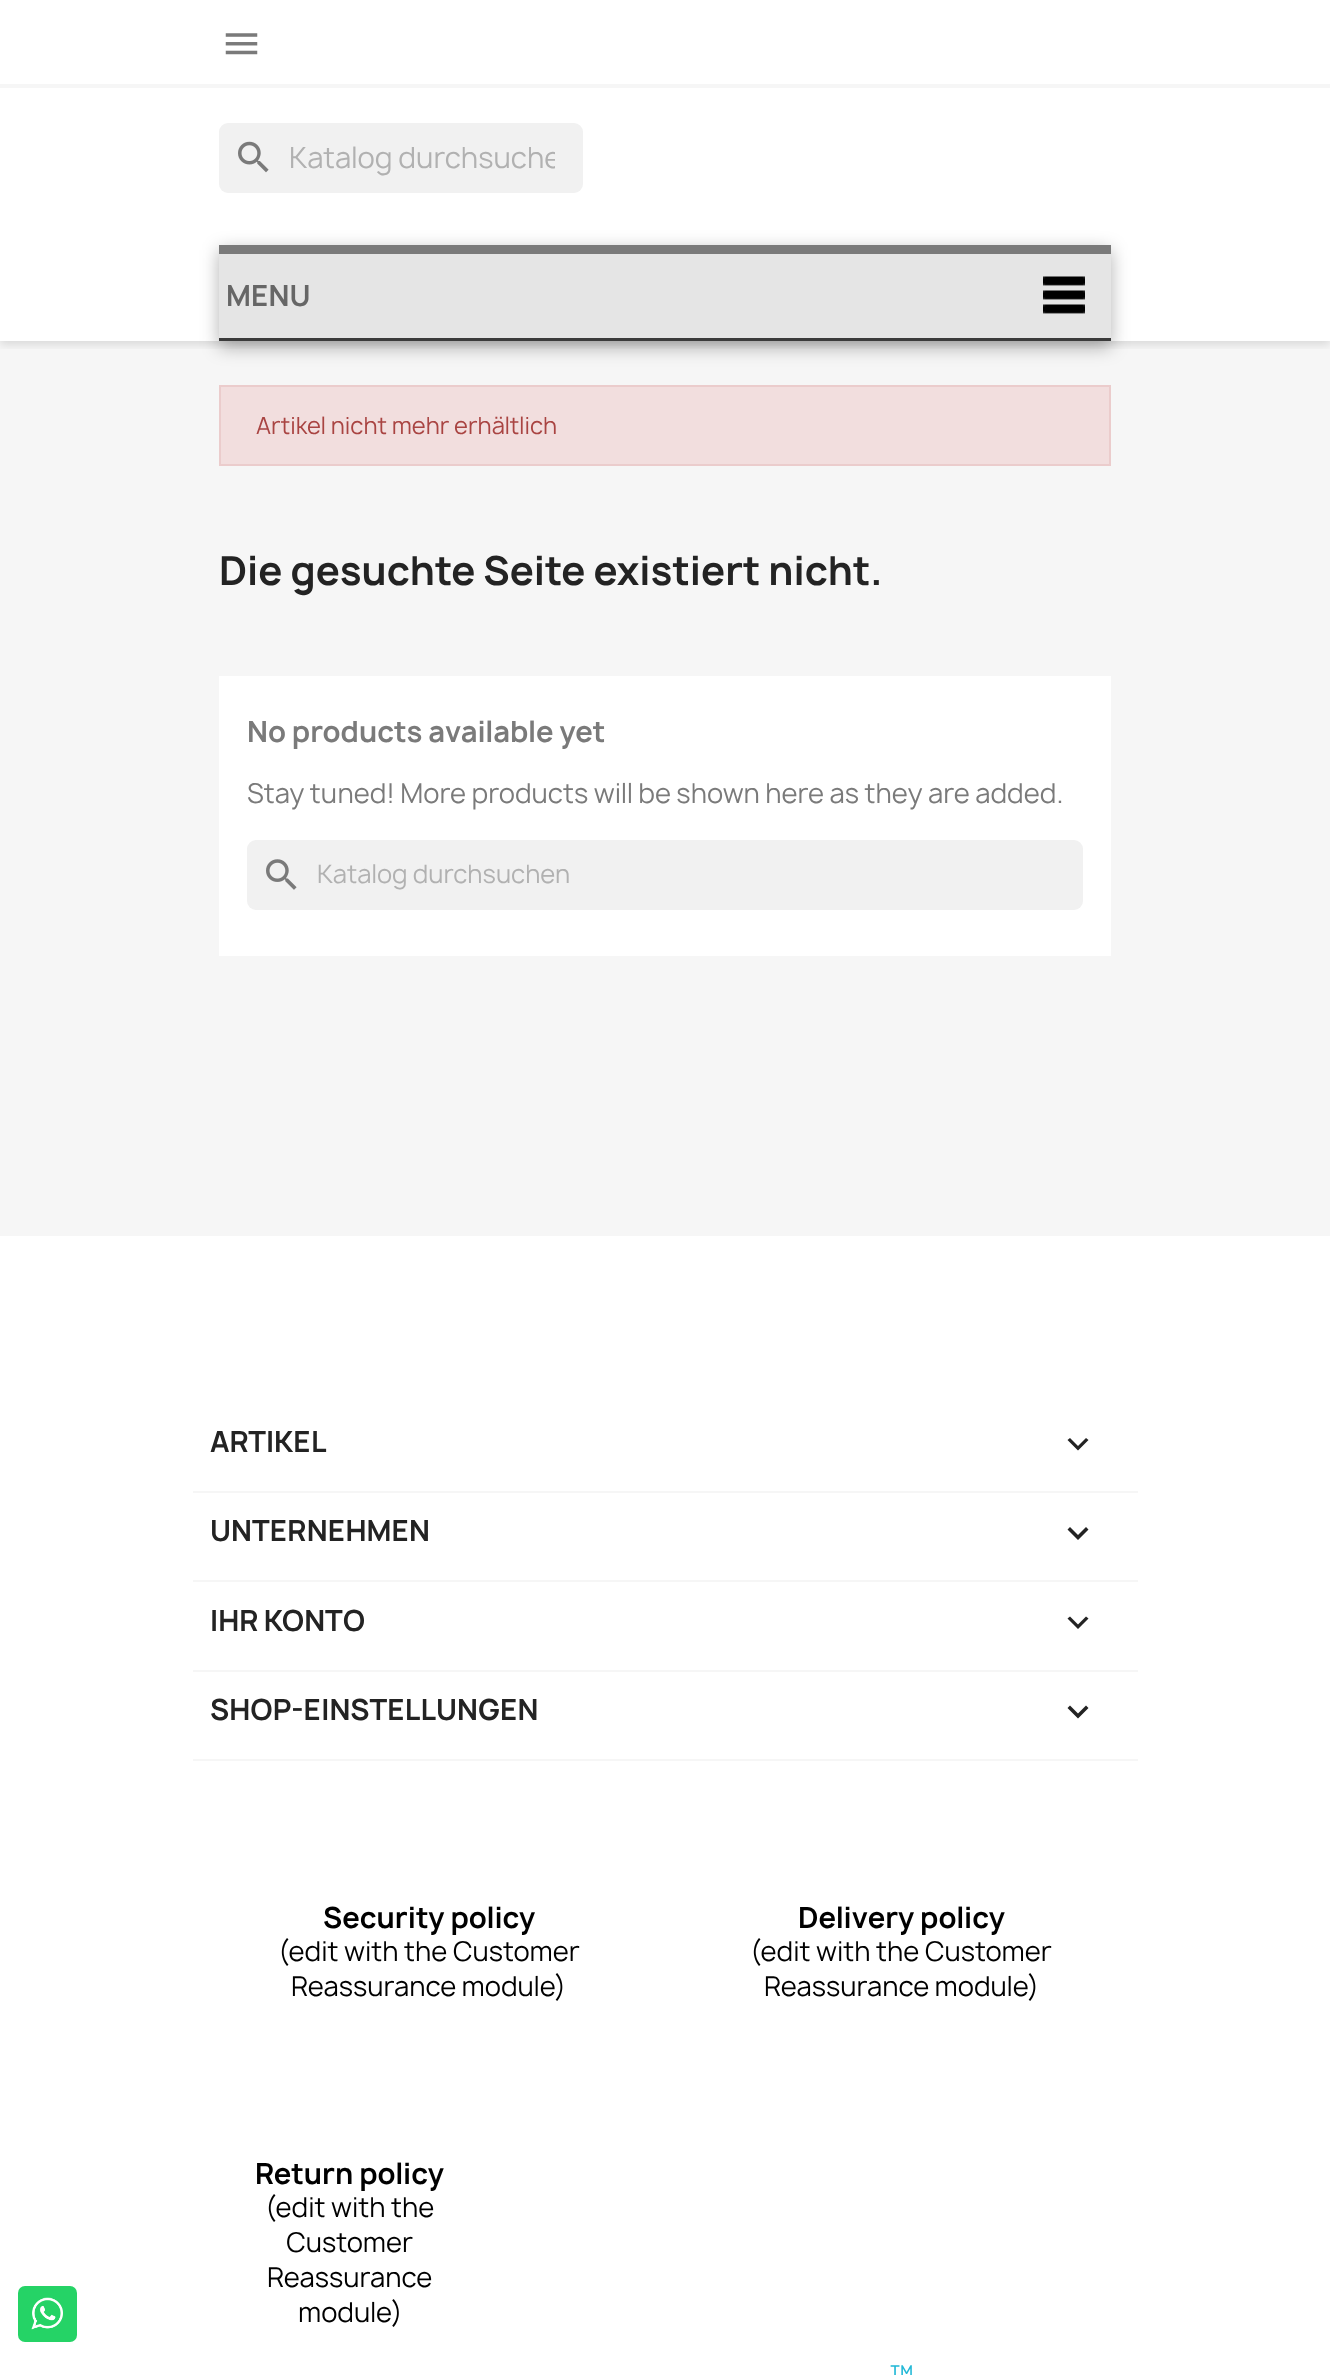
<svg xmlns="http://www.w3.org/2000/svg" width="1330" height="2375">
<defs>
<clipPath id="clip1"><rect x="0" y="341" width="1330" height="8"/></clipPath>
<clipPath id="clip2"><rect x="289" y="135" width="266" height="47"/></clipPath>
</defs>
<rect width="100%" height="100%" fill="#fff"/>
<rect x="18" y="2286" width="59" height="56" rx="7" fill="#25d366"/>
<image x="31" y="2297" width="32" height="33" href="media/1.png"/>
<rect y="341" width="1330" height="895" fill="#f6f6f6"/>
<g clip-path="url(#clip1)">
<rect y="4" width="1330" height="341" fill="#0000001c" filter="blur(4.5px)"/>
</g>
<rect y="84" width="1330" height="4" fill="#f6f6f6"/>
<image x="225" y="33" width="33" height="22" href="media/2.png"/>
<rect x="219" y="123" width="364" height="70" rx="9" fill="#f1f1f1"/>
<image x="238" y="141" width="31" height="32" href="media/3.png"/>
<g clip-path="url(#clip2)">
<text x="289" y="168" style="font-family:Manrope;font-size:28px;fill:#b1b1b1">Katalog durchsuche</text>
</g>
<rect x="219" y="250" width="892" height="97" fill="#0000004d" filter="blur(9px)"/>
<rect x="219" y="245" width="892" height="9" fill="#7a7a7a"/>
<rect x="219" y="338" width="892" height="3" fill="#3b3b3b"/>
<rect x="219" y="254" width="892" height="84" fill="#e5e5e5"/>
<image x="1043" y="276" width="42" height="38" href="media/4.png"/>
<text x="226" y="306" style="font-family:Manrope;font-size:28px;font-weight:bold;fill:#666">MENU</text>
<rect x="220" y="386" width="890" height="79" fill="#f2dede" stroke="#ebcccc" stroke-width="2"/>
<text x="256" y="434" style="font-family:Manrope;font-size:22.75px;fill:#a94442">Artikel nicht mehr erhältlich</text>
<text x="219" y="585" style="font-family:Manrope;font-size:38.5px;font-weight:bold;fill:#232323">Die gesuchte Seite existiert nicht.</text>
<rect x="219" y="676" width="892" height="280" fill="#fff"/>
<text x="247" y="742" style="font-family:Manrope;font-size:28px;font-weight:bold;fill:#7a7a7a">No products available yet</text>
<text x="247" y="803" style="font-family:Manrope;font-size:26.25px;fill:#7a7a7a">Stay tuned! More products will be shown here as they are added.</text>
<rect x="247" y="840" width="836" height="70" rx="9" fill="#f1f1f1"/>
<image x="266" y="859" width="31" height="31" href="media/5.png"/>
<text x="317" y="883" style="font-family:Manrope;font-size:24.5px;fill:#b1b1b1">Katalog durchsuchen</text>
<rect x="193" y="1491" width="945" height="2" fill="#f6f6f6"/>
<text x="210" y="1452" style="font-family:Manrope;font-size:28px;font-weight:bold;fill:#232323">ARTIKEL</text>
<path d="M1070 1438l8 8l8-8l2.5 2l-10.5 10.5l-10.5-10.5z" fill="#232323"/>
<rect x="193" y="1580" width="945" height="2" fill="#f6f6f6"/>
<text x="210" y="1541" style="font-family:Manrope;font-size:28px;font-weight:bold;fill:#232323">UNTERNEHMEN</text>
<path d="M1070 1527l8 8l8-8l2.5 2.5l-10.5 10.5l-10.5-10.5z" fill="#232323"/>
<rect x="193" y="1670" width="945" height="2" fill="#f6f6f6"/>
<text x="210" y="1631" style="font-family:Manrope;font-size:28px;font-weight:bold;fill:#232323">IHR KONTO</text>
<path d="M1070 1616.5l8 8l8-8l2.5 2l-10.5 10.5l-10.5-10.5z" fill="#232323"/>
<rect x="193" y="1759" width="945" height="2" fill="#f6f6f6"/>
<text x="210" y="1720" style="font-family:Manrope;font-size:28px;font-weight:bold;fill:#232323">SHOP-EINSTELLUNGEN</text>
<path d="M1070 1705.5l8 8l8-8l2.5 2.5l-10.5 10.5l-10.5-10.5z" fill="#232323"/>
<text x="323" y="1928" style="font-family:Manrope;font-size:28px;font-weight:bold;fill:#000">Security policy</text>
<text x="278" y="1961" style="font-family:Manrope;font-size:26.25px;fill:#000">(edit with the Customer</text>
<text x="291" y="1996" style="font-family:Manrope;font-size:26.25px;fill:#000">Reassurance module)</text>
<text x="798" y="1928" style="font-family:Manrope;font-size:28px;font-weight:bold;fill:#000">Delivery policy</text>
<text x="750" y="1961" style="font-family:Manrope;font-size:26.25px;fill:#000">(edit with the Customer</text>
<text x="764" y="1996" style="font-family:Manrope;font-size:26.25px;fill:#000">Reassurance module)</text>
<text x="255" y="2184" style="font-family:Manrope;font-size:28px;font-weight:bold;fill:#000">Return policy</text>
<text x="265" y="2217" style="font-family:Manrope;font-size:26.25px;fill:#000">(edit with the</text>
<text x="286" y="2252" style="font-family:Manrope;font-size:26.25px;fill:#000">Customer</text>
<text x="267" y="2287" style="font-family:Manrope;font-size:26.25px;fill:#000">Reassurance</text>
<text x="298" y="2322" style="font-family:Manrope;font-size:26.25px;fill:#000">module)</text>
<text x="889" y="2385" style="font-family:Manrope;font-size:26.25px;fill:#24b9d7">™</text>
</svg>
